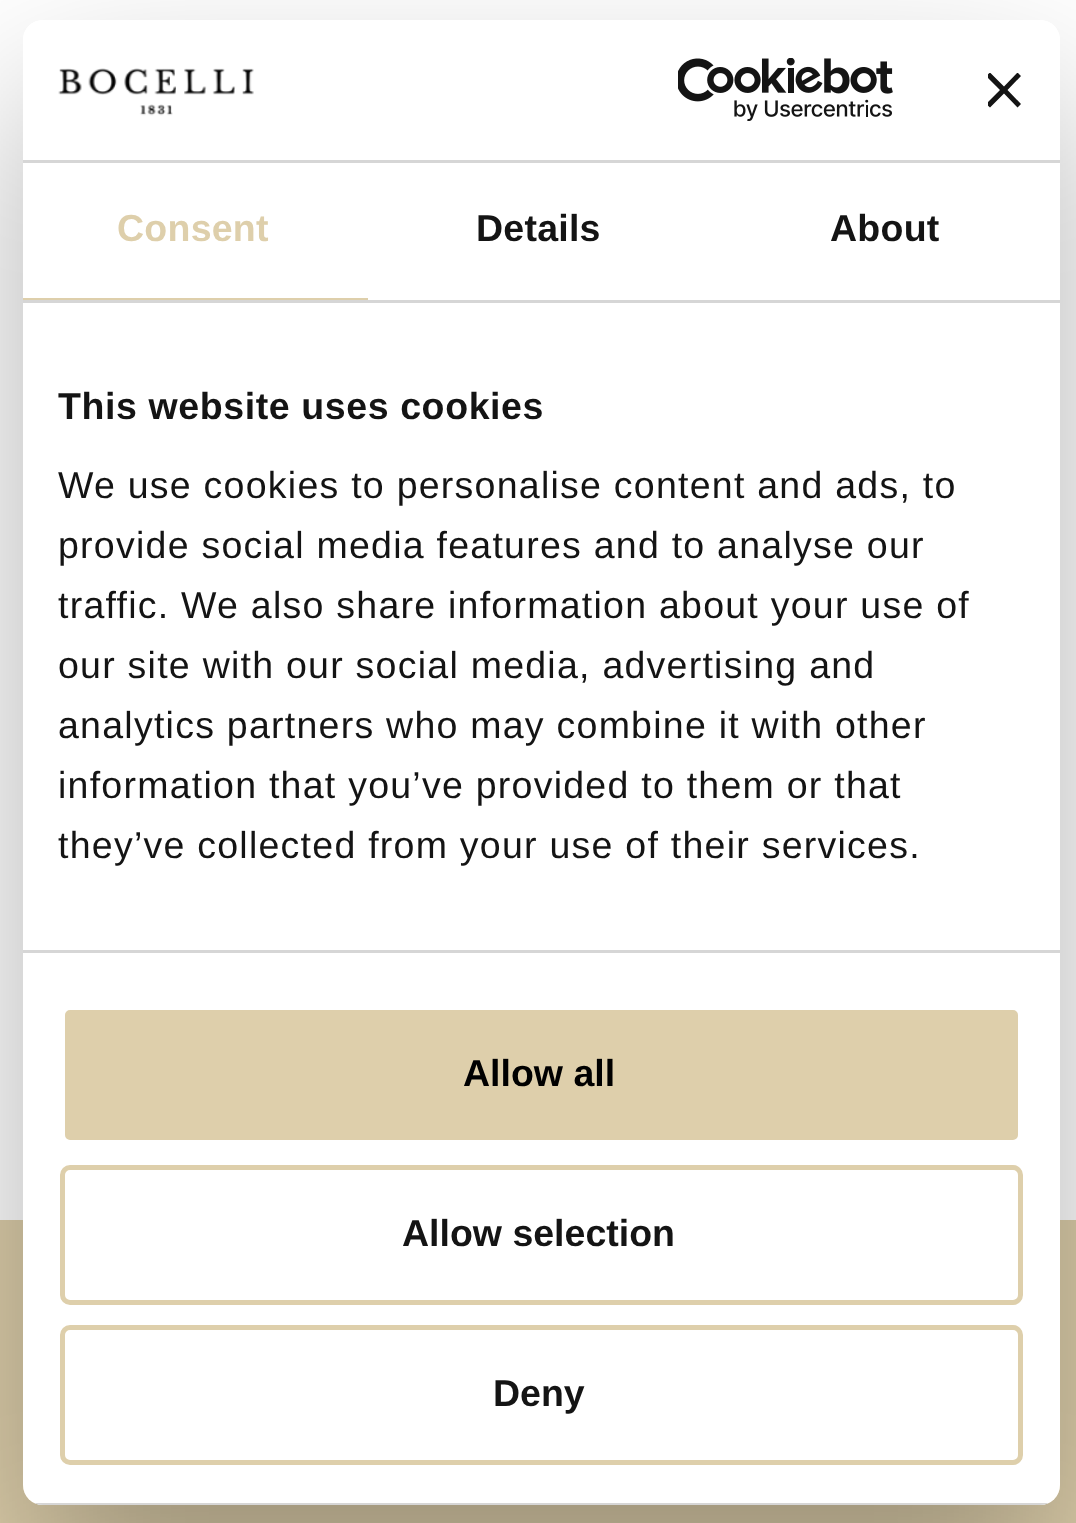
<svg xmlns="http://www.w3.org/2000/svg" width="1076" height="1523">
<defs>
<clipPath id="clip1"><path d="M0 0h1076v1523h-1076zm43 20h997c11 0 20 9 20 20v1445c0 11-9 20-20 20h-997c-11 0-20-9-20-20v-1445c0-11 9-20 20-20z" clip-rule="evenodd"/></clipPath>
<clipPath id="clip2"><rect x="988" y="73" width="35" height="35"/></clipPath>
<clipPath id="clip3"><rect x="23" y="20" width="1037" height="1485" rx="20"/></clipPath>
</defs>
<rect width="100%" height="100%" fill="#fff"/>
<rect y="1220" width="1076" height="303" fill="#decfab"/>
<g clip-path="url(#clip1)">
<rect x="23" y="100" width="1037" height="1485" rx="20" fill="#0000004d" filter="blur(85px)"/>
</g>
<rect x="23" y="20" width="1037" height="1485" rx="20" fill="#fff"/>
<rect x="23" y="160" width="1037" height="3" fill="#d6d6d6"/>
<image x="58" y="68" width="196" height="48" href="media/1.png"/>
<image x="678" y="58" width="215" height="63" href="media/2.png"/>
<g clip-path="url(#clip2)">
<path d="M1021 76l-3.5-3.5l-13.5 14l-14-14l-4 3.5l14 14l-14 14l4 3.5l14-14l13.5 14l3.5-3.5l-13.5-14z" fill="#141414"/>
</g>
<rect x="23" y="300" width="1037" height="3" fill="#d6d6d6"/>
<rect x="23" y="298" width="345" height="2" fill="#decfab"/>
<text x="117" y="241" style="font-family:Liberation Sans;font-size:37.5px;font-weight:bold;letter-spacing:0.25px;fill:#decfab">Consent</text>
<text x="476" y="241" style="font-family:Liberation Sans;font-size:37.5px;font-weight:bold;letter-spacing:0.25px;fill:#141414">Details</text>
<text x="830" y="241" style="font-family:Liberation Sans;font-size:37.5px;font-weight:bold;letter-spacing:0.25px;fill:#141414">About</text>
<rect x="23" y="950" width="1037" height="3" fill="#d6d6d6"/>
<text x="58" y="419" style="font-family:Liberation Sans;font-size:37.5px;font-weight:bold;letter-spacing:0.6px;fill:#141414">This website uses cookies</text>
<text x="58" y="498" style="font-family:Liberation Sans;font-size:37.5px;letter-spacing:1.25px;fill:#141414">We use cookies to personalise content and ads, to</text>
<text x="58" y="558" style="font-family:Liberation Sans;font-size:37.5px;letter-spacing:1.25px;fill:#141414">provide social media features and to analyse our</text>
<text x="58" y="618" style="font-family:Liberation Sans;font-size:37.5px;letter-spacing:1.25px;fill:#141414">traffic. We also share information about your use of</text>
<text x="58" y="678" style="font-family:Liberation Sans;font-size:37.5px;letter-spacing:1.25px;fill:#141414">our site with our social media, advertising and</text>
<text x="58" y="738" style="font-family:Liberation Sans;font-size:37.5px;letter-spacing:1.25px;fill:#141414">analytics partners who may combine it with other</text>
<text x="58" y="798" style="font-family:Liberation Sans;font-size:37.5px;letter-spacing:1.25px;fill:#141414">information that you’ve provided to them or that</text>
<text x="58" y="858" style="font-family:Liberation Sans;font-size:37.5px;letter-spacing:1.25px;fill:#141414">they’ve collected from your use of their services.</text>
<g clip-path="url(#clip3)">
<rect x="34" y="1503" width="1015" height="2" fill="#d6d6d6"/>
</g>
<rect x="62.5" y="1007.5" width="958" height="135" rx="7.5" fill="#decfab" stroke="#fff" stroke-width="5"/>
<text x="463" y="1086" style="font-family:Liberation Sans;font-size:37.5px;font-weight:bold;fill:#000">Allow all</text>
<rect x="62.5" y="1167.5" width="958" height="135" rx="7.5" fill="none" stroke="#decfab" stroke-width="5"/>
<text x="402" y="1246" style="font-family:Liberation Sans;font-size:37.5px;font-weight:bold;fill:#141414">Allow selection</text>
<rect x="62.5" y="1327.5" width="958" height="135" rx="7.5" fill="none" stroke="#decfab" stroke-width="5"/>
<text x="493" y="1406" style="font-family:Liberation Sans;font-size:37.5px;font-weight:bold;fill:#141414">Deny</text>
</svg>
